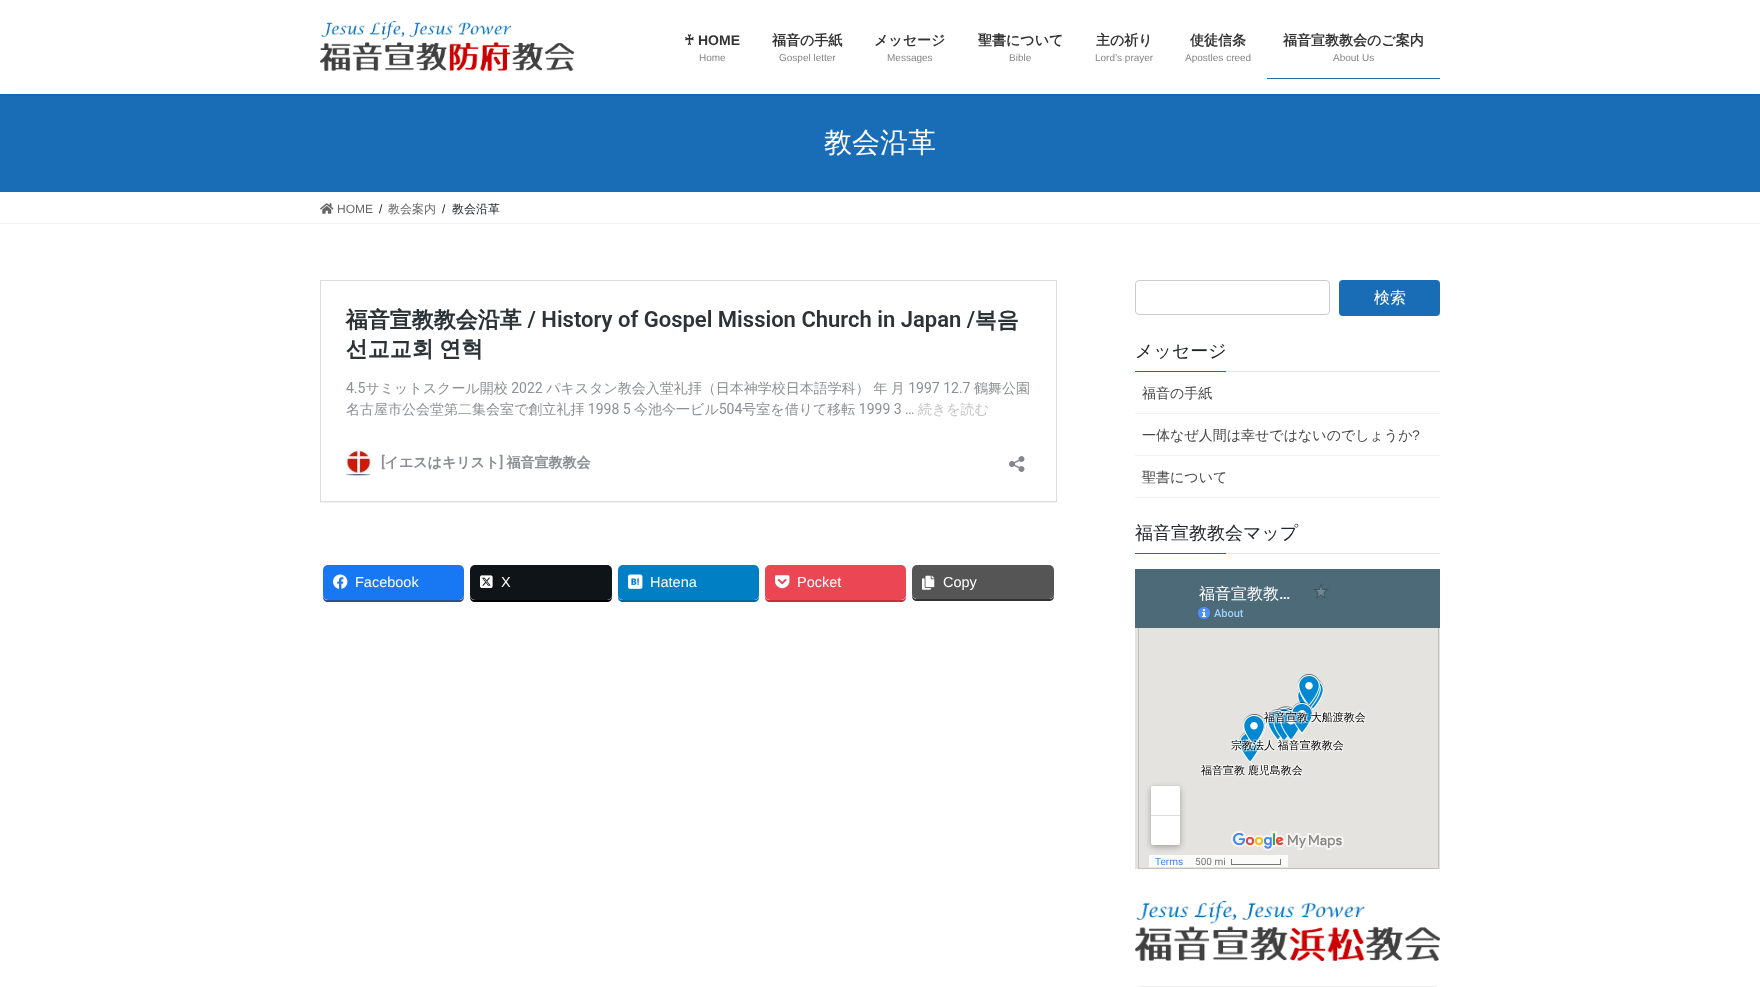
<svg xmlns="http://www.w3.org/2000/svg" width="1760" height="987">
<defs>
<clipPath id="clip1"><rect x="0" y="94" width="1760" height="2"/></clipPath>
</defs>
<rect width="100%" height="100%" fill="#fff"/>
<rect y="94" width="1760" height="98" fill="#196db7"/>
<g clip-path="url(#clip1)">
<rect y="1" width="1760" height="94" fill="#0000001a" filter="blur(1.5px)"/>
</g>
<image x="320" y="21" width="254" height="50" href="media/1.png"/>
<text x="684" y="45" style="font-family:DejaVu Sans;font-size:14px;font-weight:bold;fill:#333">♰</text>
<text x="698" y="45" style="font-family:Liberation Sans;font-size:14px;font-weight:bold;fill:#333">HOME</text>
<text x="699" y="61" style="font-family:Liberation Sans;font-size:10px;fill:#858585">Home</text>
<text x="772" y="45" style="font-family:WenQuanYi Zen Hei;font-size:14px;font-weight:bold;fill:#333">福音の手紙</text>
<text x="779" y="61" style="font-family:Liberation Sans;font-size:10px;fill:#858585">Gospel letter</text>
<text x="874" y="45" style="font-family:WenQuanYi Zen Hei;font-size:14px;font-weight:bold;fill:#333">メッセージ</text>
<text x="887" y="61" style="font-family:Liberation Sans;font-size:10px;fill:#858585">Messages</text>
<text x="978" y="45" style="font-family:WenQuanYi Zen Hei;font-size:14px;font-weight:bold;fill:#333">聖書について</text>
<text x="1009" y="61" style="font-family:Liberation Sans;font-size:10px;fill:#858585">Bible</text>
<text x="1096" y="45" style="font-family:WenQuanYi Zen Hei;font-size:14px;font-weight:bold;fill:#333">主の祈り</text>
<text x="1095" y="61" style="font-family:Liberation Sans;font-size:10px;fill:#858585">Lord’s prayer</text>
<text x="1190" y="45" style="font-family:WenQuanYi Zen Hei;font-size:14px;font-weight:bold;fill:#333">使徒信条</text>
<text x="1185" y="61" style="font-family:Liberation Sans;font-size:10px;fill:#858585">Apostles creed</text>
<text x="1283" y="45" style="font-family:WenQuanYi Zen Hei;font-size:14px;font-weight:bold;fill:#333">福音宣教教会のご案内</text>
<text x="1333" y="61" style="font-family:Liberation Sans;font-size:10px;fill:#858585">About Us</text>
<rect x="1267" y="78" width="173" height="1" fill="#2e6da4"/>
<text x="824" y="152" style="font-family:WenQuanYi Zen Hei;font-size:28px;font-weight:500;fill:#fff">教会沿革</text>
<rect y="223" width="1760" height="1" fill="#f2f2f2"/>
<image x="320" y="203" width="14" height="11" href="media/2.png"/>
<text x="337" y="213" style="font-family:Liberation Sans;font-size:12px;fill:#666">HOME</text>
<text x="379" y="213" style="font-family:Liberation Sans;font-size:12px;fill:#212529">/</text>
<text x="388" y="213" style="font-family:WenQuanYi Zen Hei;font-size:12px;font-weight:500;fill:#666">教会案内</text>
<text x="442" y="213" style="font-family:Liberation Sans;font-size:12px;fill:#212529">/</text>
<text x="452" y="213" style="font-family:WenQuanYi Zen Hei;font-size:12px;font-weight:500;fill:#212529">教会沿革</text>
<rect x="1135.5" y="280.5" width="194" height="34" rx="3.5" fill="none" stroke="#ccc"/>
<rect x="1339" y="280" width="101" height="36" rx="4" fill="#196db7"/>
<text x="1374" y="303" style="font-family:WenQuanYi Zen Hei;font-size:16px;font-weight:500;fill:#fff">検索</text>
<rect x="1226" y="371" width="214" height="1" fill="#e6e6e6"/>
<text x="1135" y="357" style="font-family:WenQuanYi Zen Hei;font-size:18px;font-weight:500;fill:#212529">メッセージ</text>
<rect x="1135" y="371" width="91" height="1" fill="#196db7"/>
<rect x="1135" y="413" width="305" height="1" fill="#f2f2f2"/>
<text x="1142" y="398" style="font-family:WenQuanYi Zen Hei;font-size:14px;font-weight:500;fill:#464646">福音の手紙</text>
<rect x="1135" y="455" width="305" height="1" fill="#f2f2f2"/>
<text x="1142" y="440" style="font-family:WenQuanYi Zen Hei;font-size:14px;font-weight:500;fill:#464646">一体なぜ人間は幸せではないのでしょうか</text>
<text x="1412" y="440" style="font-family:Liberation Sans;font-size:14px;fill:#464646">?</text>
<rect x="1135" y="497" width="305" height="1" fill="#f2f2f2"/>
<text x="1142" y="482" style="font-family:WenQuanYi Zen Hei;font-size:14px;font-weight:500;fill:#464646">聖書について</text>
<rect x="1226" y="553" width="214" height="1" fill="#e6e6e6"/>
<text x="1135" y="539" style="font-family:WenQuanYi Zen Hei;font-size:18px;font-weight:500;fill:#212529">福音宣教教会マップ</text>
<rect x="1135" y="553" width="91" height="1" fill="#196db7"/>
<image x="1135" y="569" width="305" height="300" href="media/3.png"/>
<image x="1135" y="901" width="305" height="60" href="media/4.png"/>
<rect x="1136.5" y="987.5" width="302" height="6" rx="3.5" fill="none" stroke="#ededed" stroke-width="3"/>
<image x="320" y="280" width="737" height="223" href="media/5.png"/>
<path d="M323 595v2c0 3 2 5 5 5h131c3 0 5-2 5-5v-2c0 3-2 5-5 5h-131c-3 0-5-2-5-5z" fill="#344e84"/>
<rect x="323" y="565" width="141" height="35" rx="5" fill="#1877f2"/>
<image x="333" y="574" width="15" height="15" href="media/6.png"/>
<text x="355" y="587" style="font-family:Liberation Sans;font-size:14.5px;fill:#fff">Facebook</text>
<path d="M470 595v2c0 3 2 5 5 5h132c3 0 5-2 5-5v-2c0 3-2 5-5 5h-132c-3 0-5-2-5-5z" fill="#000"/>
<rect x="470" y="565" width="142" height="35" rx="5" fill="#0f1419"/>
<image x="480" y="575" width="13" height="13" href="media/7.png"/>
<text x="501" y="587" style="font-family:Liberation Sans;font-size:14.5px;fill:#fff">X</text>
<path d="M618 595v2c0 3 2 5 5 5h131c3 0 5-2 5-5v-2c0 3-2 5-5 5h-131c-3 0-5-2-5-5z" fill="#00679f"/>
<rect x="618" y="565" width="141" height="35" rx="5" fill="#007fc5"/>
<image x="628" y="574" width="15" height="15" href="media/8.png"/>
<text x="650" y="587" style="font-family:Liberation Sans;font-size:14.5px;fill:#fff">Hatena</text>
<path d="M765 595v2c0 3 2 5 5 5h131c3 0 5-2 5-5v-2c0 3-2 5-5 5h-131c-3 0-5-2-5-5z" fill="#c1303c"/>
<rect x="765" y="565" width="141" height="35" rx="5" fill="#ea4654"/>
<image x="775" y="575" width="15" height="14" href="media/9.png"/>
<text x="797" y="587" style="font-family:Liberation Sans;font-size:14.5px;fill:#fff">Pocket</text>
<path d="M912 594v2c0 3 2 5 5 5h132c3 0 5-2 5-5v-2c0 3-2 5-5 5h-132c-3 0-5-2-5-5z" fill="#333"/>
<rect x="912" y="565" width="142" height="34" rx="5" fill="#555"/>
<image x="922" y="575" width="13" height="15" href="media/10.png"/>
<text x="943" y="587" style="font-family:Liberation Sans;font-size:14.5px;fill:#fff">Copy</text>
</svg>
